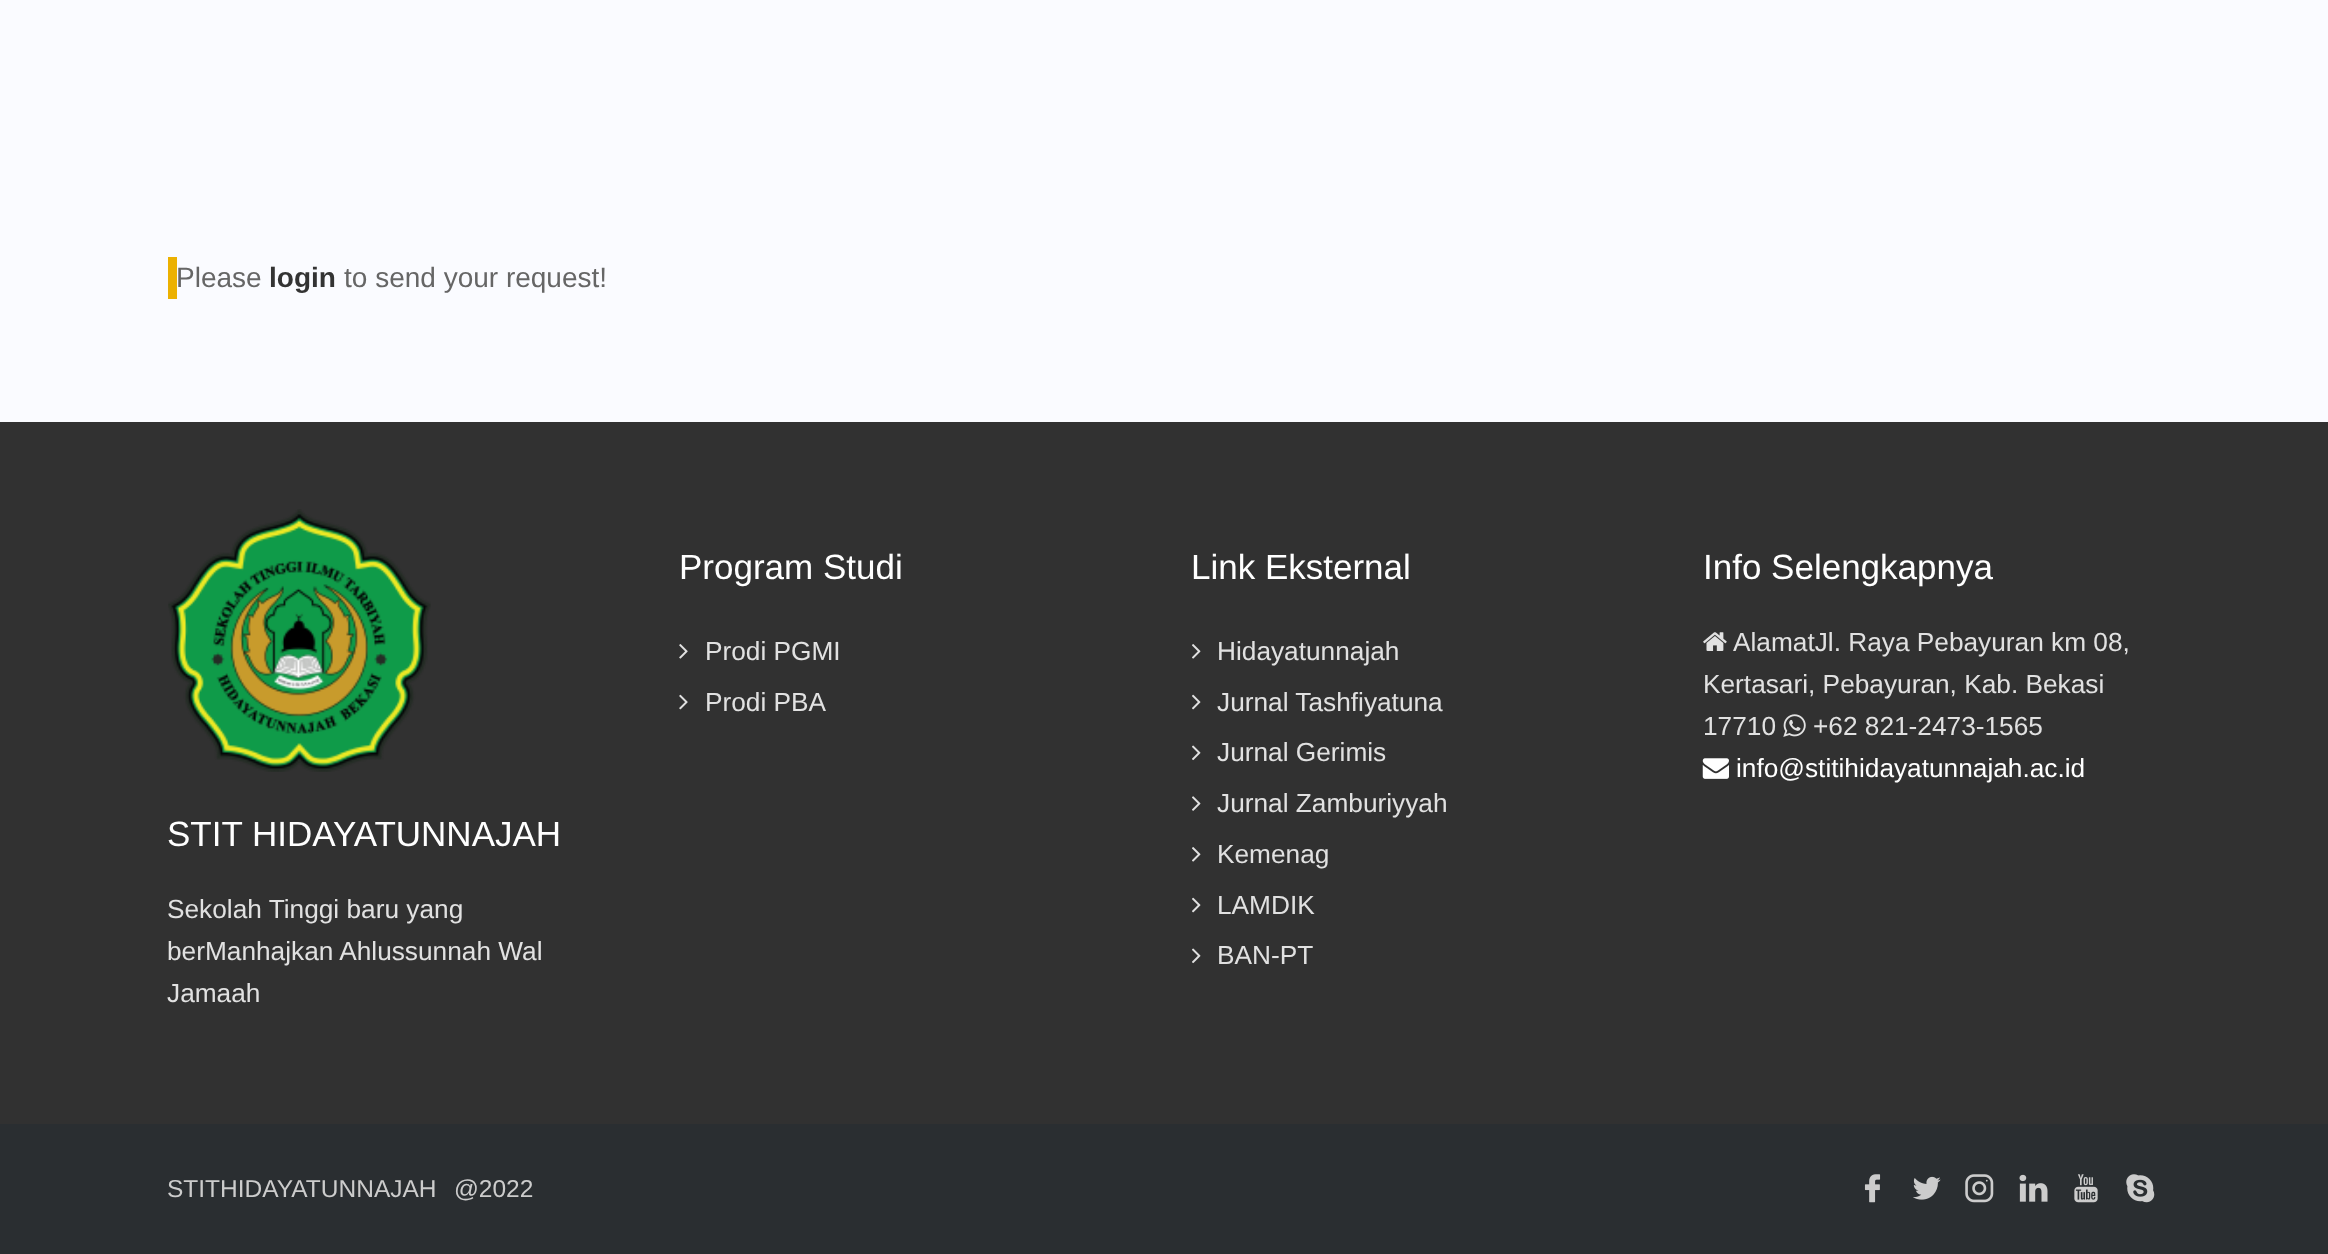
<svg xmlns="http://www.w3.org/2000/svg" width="2328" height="1254">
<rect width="100%" height="100%" fill="#fafbff"/>
<rect x="168" y="257" width="9" height="42" fill="#ecb101"/>
<text x="176" y="287" style="font-family:Liberation Sans;font-size:28px;fill:#666">Please</text>
<text x="269" y="287" style="font-family:Liberation Sans;font-size:28px;font-weight:bold;fill:#333">login</text>
<text x="344" y="287" style="font-family:Liberation Sans;font-size:28px;fill:#666">to send your request!</text>
<rect y="422" width="2328" height="702" fill="#313131"/>
<text x="679" y="579" style="font-family:Liberation Sans;font-size:35px;fill:#fff">Program Studi</text>
<image x="679" y="644" width="9" height="15" href="media/1.png"/>
<text x="705" y="660" style="font-family:Liberation Sans;font-size:26.25px;fill:#e1e1e1">Prodi PGMI</text>
<image x="679" y="694" width="9" height="16" href="media/2.png"/>
<text x="705" y="711" style="font-family:Liberation Sans;font-size:26.25px;fill:#e1e1e1">Prodi PBA</text>
<text x="1191" y="579" style="font-family:Liberation Sans;font-size:35px;fill:#fff">Link Eksternal</text>
<image x="1192" y="644" width="9" height="15" href="media/3.png"/>
<text x="1217" y="660" style="font-family:Liberation Sans;font-size:26.25px;fill:#e1e1e1">Hidayatunnajah</text>
<image x="1192" y="694" width="9" height="16" href="media/4.png"/>
<text x="1217" y="711" style="font-family:Liberation Sans;font-size:26.25px;fill:#e1e1e1">Jurnal Tashfiyatuna</text>
<image x="1192" y="745" width="9" height="16" href="media/5.png"/>
<text x="1217" y="761" style="font-family:Liberation Sans;font-size:26.25px;fill:#e1e1e1">Jurnal Gerimis</text>
<image x="1192" y="796" width="9" height="15" href="media/6.png"/>
<text x="1217" y="812" style="font-family:Liberation Sans;font-size:26.25px;fill:#e1e1e1">Jurnal Zamburiyyah</text>
<image x="1192" y="847" width="9" height="15" href="media/3.png"/>
<text x="1217" y="863" style="font-family:Liberation Sans;font-size:26.25px;fill:#e1e1e1">Kemenag</text>
<image x="1192" y="897" width="9" height="16" href="media/4.png"/>
<text x="1217" y="914" style="font-family:Liberation Sans;font-size:26.25px;fill:#e1e1e1">LAMDIK</text>
<image x="1192" y="948" width="9" height="16" href="media/5.png"/>
<text x="1217" y="964" style="font-family:Liberation Sans;font-size:26.25px;fill:#e1e1e1">BAN-PT</text>
<text x="1703" y="579" style="font-family:Liberation Sans;font-size:35px;fill:#fff">Info Selengkapnya</text>
<image x="1703" y="632" width="24" height="19" href="media/7.png"/>
<text x="1733" y="651" style="font-family:Liberation Sans;font-size:26.25px;fill:#e1e1e1">AlamatJl. Raya Pebayuran km 08,</text>
<text x="1703" y="693" style="font-family:Liberation Sans;font-size:26.25px;fill:#e1e1e1">Kertasari, Pebayuran, Kab. Bekasi</text>
<text x="1703" y="735" style="font-family:Liberation Sans;font-size:26.25px;fill:#e1e1e1">17710</text>
<image x="1783" y="714" width="23" height="23" href="media/8.png"/>
<text x="1813" y="735" style="font-family:Liberation Sans;font-size:26.25px;fill:#e1e1e1">+62 821-2473-1565</text>
<image x="1702" y="758" width="27" height="21" href="media/9.png"/>
<text x="1736" y="777" style="font-family:Liberation Sans;font-size:26.25px;fill:#fff">info@stitihidayatunnajah.ac.id</text>
<image x="168" y="509" width="263" height="263" href="media/10.png"/>
<text x="167" y="846" style="font-family:Liberation Sans;font-size:35px;fill:#fff">STIT HIDAYATUNNAJAH</text>
<text x="167" y="918" style="font-family:Liberation Sans;font-size:26.25px;fill:#e1e1e1">Sekolah Tinggi baru yang</text>
<text x="167" y="960" style="font-family:Liberation Sans;font-size:26.25px;fill:#e1e1e1">berManhajkan Ahlussunnah Wal</text>
<text x="167" y="1002" style="font-family:Liberation Sans;font-size:26.25px;fill:#e1e1e1">Jamaah</text>
<rect y="1124" width="2328" height="130" fill="#2a2e31"/>
<text x="167" y="1197" style="font-family:Liberation Sans;font-size:24.5px;fill:#ccc">STITHIDAYATUNNAJAH</text>
<text x="454" y="1197" style="font-family:Liberation Sans;font-size:24.5px;fill:#ccc">@2022</text>
<image x="1864" y="1174" width="17" height="29" href="media/11.png"/>
<image x="1913" y="1176" width="28" height="24" href="media/12.png"/>
<image x="1965" y="1174" width="29" height="29" href="media/13.png"/>
<image x="2019" y="1174" width="29" height="28" href="media/14.png"/>
<image x="2074" y="1174" width="24" height="29" href="media/15.png"/>
<image x="2126" y="1174" width="29" height="29" href="media/16.png"/>
</svg>
